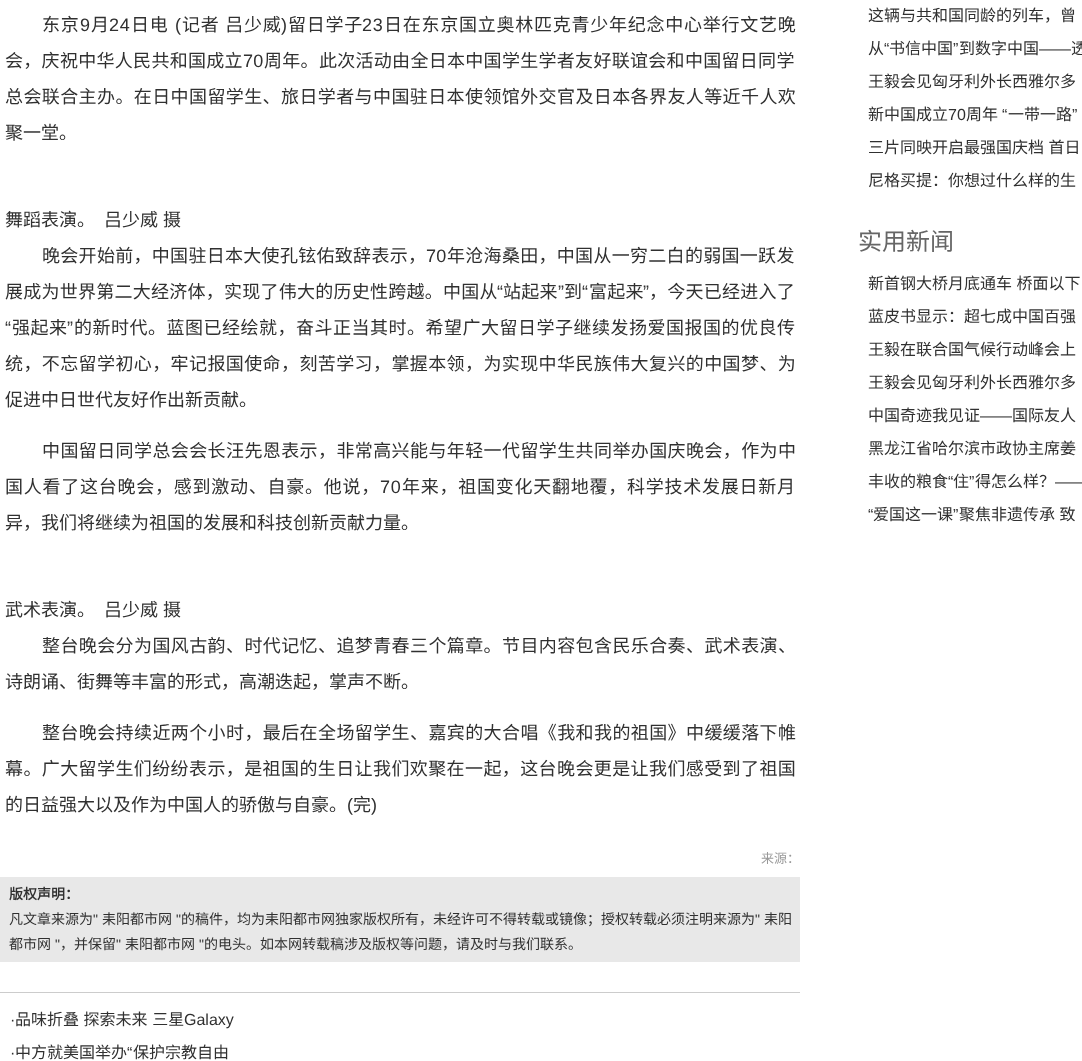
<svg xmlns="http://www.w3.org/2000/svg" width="1082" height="1061">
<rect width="100%" height="100%" fill="#fff"/>
<text x="42" y="31" style="font-family:Noto Sans CJK SC;font-size:18px;letter-spacing:0.75px;fill:#303030">东京</text>
<text x="80" y="31" style="font-family:Liberation Sans;font-size:18px;letter-spacing:0.75px;fill:#303030">9</text>
<text x="91" y="31" style="font-family:Noto Sans CJK SC;font-size:18px;letter-spacing:0.75px;fill:#303030">月</text>
<text x="109" y="31" style="font-family:Liberation Sans;font-size:18px;letter-spacing:0.75px;fill:#303030">24</text>
<text x="131" y="31" style="font-family:Noto Sans CJK SC;font-size:18px;letter-spacing:0.75px;fill:#303030">日电</text>
<text x="175" y="31" style="font-family:Liberation Sans;font-size:18px;letter-spacing:0.75px;fill:#303030">(</text>
<text x="182" y="31" word-spacing="1" style="font-family:Noto Sans CJK SC;font-size:18px;letter-spacing:0.75px;fill:#303030">记者 吕少威</text>
<text x="281" y="31" style="font-family:Liberation Sans;font-size:18px;letter-spacing:0.75px;fill:#303030">)</text>
<text x="288" y="31" style="font-family:Noto Sans CJK SC;font-size:18px;letter-spacing:0.75px;fill:#303030">留日学子</text>
<text x="362" y="31" style="font-family:Liberation Sans;font-size:18px;letter-spacing:0.75px;fill:#303030">23</text>
<text x="384" y="31" style="font-family:Noto Sans CJK SC;font-size:18px;letter-spacing:0.75px;fill:#303030">日在东京国立奥林匹克青少年纪念中心举行文艺晚</text>
<text x="5" y="67" style="font-family:Noto Sans CJK SC;font-size:18px;letter-spacing:0.3px;fill:#303030">会，庆祝中华人民共和国成立</text>
<text x="243" y="67" style="font-family:Liberation Sans;font-size:18px;letter-spacing:0.3px;fill:#303030">70</text>
<text x="264" y="67" style="font-family:Noto Sans CJK SC;font-size:18px;letter-spacing:0.3px;fill:#303030">周年。此次活动由全日本中国学生学者友好联谊会和中国留日同学</text>
<text x="5" y="103" style="font-family:Noto Sans CJK SC;font-size:18px;letter-spacing:0.4px;fill:#303030">总会联合主办。在日中国留学生、旅日学者与中国驻日本使领馆外交官及日本各界友人等近千人欢</text>
<text x="5" y="139" style="font-family:Noto Sans CJK SC;font-size:18px;fill:#303030">聚一堂。</text>
<text x="5" y="226" word-spacing="1" style="font-family:Noto Sans CJK SC;font-size:18px;fill:#303030">舞蹈表演。　吕少威 摄</text>
<text x="42" y="262" style="font-family:Noto Sans CJK SC;font-size:18px;letter-spacing:0.3px;fill:#303030">晚会开始前，中国驻日本大使孔铉佑致辞表示，</text>
<text x="426" y="262" style="font-family:Liberation Sans;font-size:18px;letter-spacing:0.3px;fill:#303030">70</text>
<text x="447" y="262" style="font-family:Noto Sans CJK SC;font-size:18px;letter-spacing:0.3px;fill:#303030">年沧海桑田，中国从一穷二白的弱国一跃发</text>
<text x="5" y="298" style="font-family:Noto Sans CJK SC;font-size:18px;letter-spacing:0.25px;fill:#303030">展成为世界第二大经济体，实现了伟大的历史性跨越。中国从</text>
<text x="497" y="298" style="font-family:Liberation Sans;font-size:18px;letter-spacing:0.25px;fill:#303030">“</text>
<text x="503" y="298" style="font-family:Noto Sans CJK SC;font-size:18px;letter-spacing:0.25px;fill:#303030">站起来</text>
<text x="558" y="298" style="font-family:Liberation Sans;font-size:18px;letter-spacing:0.25px;fill:#303030">”</text>
<text x="564" y="298" style="font-family:Noto Sans CJK SC;font-size:18px;letter-spacing:0.25px;fill:#303030">到</text>
<text x="582" y="298" style="font-family:Liberation Sans;font-size:18px;letter-spacing:0.25px;fill:#303030">“</text>
<text x="589" y="298" style="font-family:Noto Sans CJK SC;font-size:18px;letter-spacing:0.25px;fill:#303030">富起来</text>
<text x="643" y="298" style="font-family:Liberation Sans;font-size:18px;letter-spacing:0.25px;fill:#303030">”</text>
<text x="649" y="298" style="font-family:Noto Sans CJK SC;font-size:18px;letter-spacing:0.25px;fill:#303030">，今天已经进入了</text>
<text x="5" y="334" style="font-family:Liberation Sans;font-size:18px;letter-spacing:0.5px;fill:#303030">“</text>
<text x="12" y="334" style="font-family:Noto Sans CJK SC;font-size:18px;letter-spacing:0.5px;fill:#303030">强起来</text>
<text x="67" y="334" style="font-family:Liberation Sans;font-size:18px;letter-spacing:0.5px;fill:#303030">”</text>
<text x="74" y="334" style="font-family:Noto Sans CJK SC;font-size:18px;letter-spacing:0.5px;fill:#303030">的新时代。蓝图已经绘就，奋斗正当其时。希望广大留日学子继续发扬爱国报国的优良传</text>
<text x="5" y="370" style="font-family:Noto Sans CJK SC;font-size:18px;letter-spacing:0.4px;fill:#303030">统，不忘留学初心，牢记报国使命，刻苦学习，掌握本领，为实现中华民族伟大复兴的中国梦、为</text>
<text x="5" y="406" style="font-family:Noto Sans CJK SC;font-size:18px;fill:#303030">促进中日世代友好作出新贡献。</text>
<text x="42" y="457" style="font-family:Noto Sans CJK SC;font-size:18px;letter-spacing:0.4px;fill:#303030">中国留日同学总会会长汪先恩表示，非常高兴能与年轻一代留学生共同举办国庆晚会，作为中</text>
<text x="5" y="493" style="font-family:Noto Sans CJK SC;font-size:18px;letter-spacing:0.75px;fill:#303030">国人看了这台晚会，感到激动、自豪。他说，</text>
<text x="380" y="493" style="font-family:Liberation Sans;font-size:18px;letter-spacing:0.75px;fill:#303030">70</text>
<text x="402" y="493" style="font-family:Noto Sans CJK SC;font-size:18px;letter-spacing:0.75px;fill:#303030">年来，祖国变化天翻地覆，科学技术发展日新月</text>
<text x="5" y="529" style="font-family:Noto Sans CJK SC;font-size:18px;fill:#303030">异，我们将继续为祖国的发展和科技创新贡献力量。</text>
<text x="5" y="616" word-spacing="1" style="font-family:Noto Sans CJK SC;font-size:18px;fill:#303030">武术表演。　吕少威 摄</text>
<text x="42" y="652" style="font-family:Noto Sans CJK SC;font-size:18px;letter-spacing:0.4px;fill:#303030">整台晚会分为国风古韵、时代记忆、追梦青春三个篇章。节目内容包含民乐合奏、武术表演、</text>
<text x="5" y="688" style="font-family:Noto Sans CJK SC;font-size:18px;fill:#303030">诗朗诵、街舞等丰富的形式，高潮迭起，掌声不断。</text>
<text x="42" y="739" style="font-family:Noto Sans CJK SC;font-size:18px;letter-spacing:0.4px;fill:#303030">整台晚会持续近两个小时，最后在全场留学生、嘉宾的大合唱《我和我的祖国》中缓缓落下帷</text>
<text x="5" y="775" style="font-family:Noto Sans CJK SC;font-size:18px;letter-spacing:0.4px;fill:#303030">幕。广大留学生们纷纷表示，是祖国的生日让我们欢聚在一起，这台晚会更是让我们感受到了祖国</text>
<text x="5" y="811" style="font-family:Noto Sans CJK SC;font-size:18px;fill:#303030">的日益强大以及作为中国人的骄傲与自豪。</text>
<text x="347" y="811" style="font-family:Liberation Sans;font-size:18px;fill:#303030">(</text>
<text x="353" y="811" style="font-family:Noto Sans CJK SC;font-size:18px;fill:#303030">完</text>
<text x="371" y="811" style="font-family:Liberation Sans;font-size:18px;fill:#303030">)</text>
<text x="761" y="863" style="font-family:Noto Sans CJK SC;font-size:13px;fill:#999">来源：</text>
<rect y="877" width="800" height="85" fill="#e8e8e8"/>
<text x="9" y="899" style="font-family:Noto Sans CJK SC;font-size:14px;font-weight:bold;fill:#303030">版权声明：</text>
<text x="9" y="924" style="font-family:Noto Sans CJK SC;font-size:14px;fill:#303030">凡文章来源为</text>
<text x="93" y="924" style="font-family:Liberation Sans;font-size:14px;fill:#303030">"</text>
<text x="102" y="924" style="font-family:Noto Sans CJK SC;font-size:14px;fill:#303030">耒阳都市网</text>
<text x="176" y="924" style="font-family:Liberation Sans;font-size:14px;fill:#303030">"</text>
<text x="181" y="924" style="font-family:Noto Sans CJK SC;font-size:14px;fill:#303030">的稿件，均为耒阳都市网独家版权所有，未经许可不得转载或镜像；授权转载必须注明来源为</text>
<text x="755" y="924" style="font-family:Liberation Sans;font-size:14px;fill:#303030">"</text>
<text x="764" y="924" style="font-family:Noto Sans CJK SC;font-size:14px;fill:#303030">耒阳</text>
<text x="9" y="949" style="font-family:Noto Sans CJK SC;font-size:14px;fill:#303030">都市网</text>
<text x="55" y="949" style="font-family:Liberation Sans;font-size:14px;fill:#303030">"</text>
<text x="60" y="949" style="font-family:Noto Sans CJK SC;font-size:14px;fill:#303030">，并保留</text>
<text x="116" y="949" style="font-family:Liberation Sans;font-size:14px;fill:#303030">"</text>
<text x="125" y="949" style="font-family:Noto Sans CJK SC;font-size:14px;fill:#303030">耒阳都市网</text>
<text x="199" y="949" style="font-family:Liberation Sans;font-size:14px;fill:#303030">"</text>
<text x="204" y="949" style="font-family:Noto Sans CJK SC;font-size:14px;fill:#303030">的电头。如本网转载稿涉及版权等问题，请及时与我们联系。</text>
<rect y="992" width="800" height="1" fill="#ccc"/>
<text x="10" y="1025" style="font-family:Liberation Sans;font-size:16px;fill:#303030">·</text>
<text x="15" y="1025" word-spacing="1" style="font-family:Noto Sans CJK SC;font-size:16px;fill:#303030">品味折叠 探索未来 三星</text>
<text x="184" y="1025" style="font-family:Liberation Sans;font-size:16px;fill:#303030">Galaxy</text>
<text x="15" y="1058" style="font-family:Noto Sans CJK SC;font-size:16px;fill:#303030">中方就美国举办</text>
<text x="127" y="1058" style="font-family:Liberation Sans;font-size:16px;fill:#303030">“</text>
<text x="133" y="1058" style="font-family:Noto Sans CJK SC;font-size:16px;fill:#303030">保护宗教自由</text>
<text x="10" y="1058" style="font-family:Liberation Sans;font-size:16px;fill:#303030">·</text>
<text x="868" y="21" style="font-family:Noto Sans CJK SC;font-size:16px;fill:#303030">这辆与共和国同龄的列车，曾</text>
<text x="868" y="54" style="font-family:Noto Sans CJK SC;font-size:16px;fill:#303030">从</text>
<text x="884" y="54" style="font-family:Liberation Sans;font-size:16px;fill:#303030">“</text>
<text x="889" y="54" style="font-family:Noto Sans CJK SC;font-size:16px;fill:#303030">书信中国</text>
<text x="953" y="54" style="font-family:Liberation Sans;font-size:16px;fill:#303030">”</text>
<text x="959" y="54" style="font-family:Noto Sans CJK SC;font-size:16px;fill:#303030">到数字中国</text>
<text x="1071" y="54" style="font-family:Noto Sans CJK SC;font-size:16px;fill:#303030">透</text>
<text x="1039" y="54" style="font-family:Liberation Sans;font-size:16px;fill:#303030">——</text>
<text x="868" y="87" style="font-family:Noto Sans CJK SC;font-size:16px;fill:#303030">王毅会见匈牙利外长西雅尔多</text>
<text x="868" y="120" style="font-family:Noto Sans CJK SC;font-size:16px;fill:#303030">新中国成立</text>
<text x="948" y="120" style="font-family:Liberation Sans;font-size:16px;fill:#303030">70</text>
<text x="966" y="120" style="font-family:Noto Sans CJK SC;font-size:16px;fill:#303030">周年</text>
<text x="1002" y="120" style="font-family:Liberation Sans;font-size:16px;fill:#303030">“</text>
<text x="1008" y="120" style="font-family:Noto Sans CJK SC;font-size:16px;fill:#303030">一带一路</text>
<text x="1072" y="120" style="font-family:Liberation Sans;font-size:16px;fill:#303030">”</text>
<text x="868" y="153" word-spacing="1" style="font-family:Noto Sans CJK SC;font-size:16px;fill:#303030">三片同映开启最强国庆档 首日</text>
<text x="868" y="186" style="font-family:Noto Sans CJK SC;font-size:16px;fill:#303030">尼格买提：你想过什么样的生</text>
<text x="858" y="250" style="font-family:Noto Sans CJK SC;font-size:24px;fill:#666">实用新闻</text>
<text x="868" y="289" word-spacing="1" style="font-family:Noto Sans CJK SC;font-size:16px;fill:#303030">新首钢大桥月底通车 桥面以下</text>
<text x="868" y="322" style="font-family:Noto Sans CJK SC;font-size:16px;fill:#303030">蓝皮书显示：超七成中国百强</text>
<text x="868" y="355" style="font-family:Noto Sans CJK SC;font-size:16px;fill:#303030">王毅在联合国气候行动峰会上</text>
<text x="868" y="388" style="font-family:Noto Sans CJK SC;font-size:16px;fill:#303030">王毅会见匈牙利外长西雅尔多</text>
<text x="868" y="421" style="font-family:Noto Sans CJK SC;font-size:16px;fill:#303030">中国奇迹我见证</text>
<text x="980" y="421" style="font-family:Liberation Sans;font-size:16px;fill:#303030">——</text>
<text x="1012" y="421" style="font-family:Noto Sans CJK SC;font-size:16px;fill:#303030">国际友人</text>
<text x="868" y="454" style="font-family:Noto Sans CJK SC;font-size:16px;fill:#303030">黑龙江省哈尔滨市政协主席姜</text>
<text x="868" y="487" style="font-family:Noto Sans CJK SC;font-size:16px;fill:#303030">丰收的粮食</text>
<text x="948" y="487" style="font-family:Liberation Sans;font-size:16px;fill:#303030">“</text>
<text x="953" y="487" style="font-family:Noto Sans CJK SC;font-size:16px;fill:#303030">住</text>
<text x="969" y="487" style="font-family:Liberation Sans;font-size:16px;fill:#303030">”</text>
<text x="975" y="487" style="font-family:Noto Sans CJK SC;font-size:16px;fill:#303030">得怎么样？</text>
<text x="1055" y="487" style="font-family:Liberation Sans;font-size:16px;fill:#303030">——</text>
<text x="868" y="520" style="font-family:Liberation Sans;font-size:16px;fill:#303030">“</text>
<text x="873" y="520" style="font-family:Noto Sans CJK SC;font-size:16px;fill:#303030">爱国这一课</text>
<text x="953" y="520" style="font-family:Liberation Sans;font-size:16px;fill:#303030">”</text>
<text x="959" y="520" word-spacing="1" style="font-family:Noto Sans CJK SC;font-size:16px;fill:#303030">聚焦非遗传承 致</text>
</svg>
